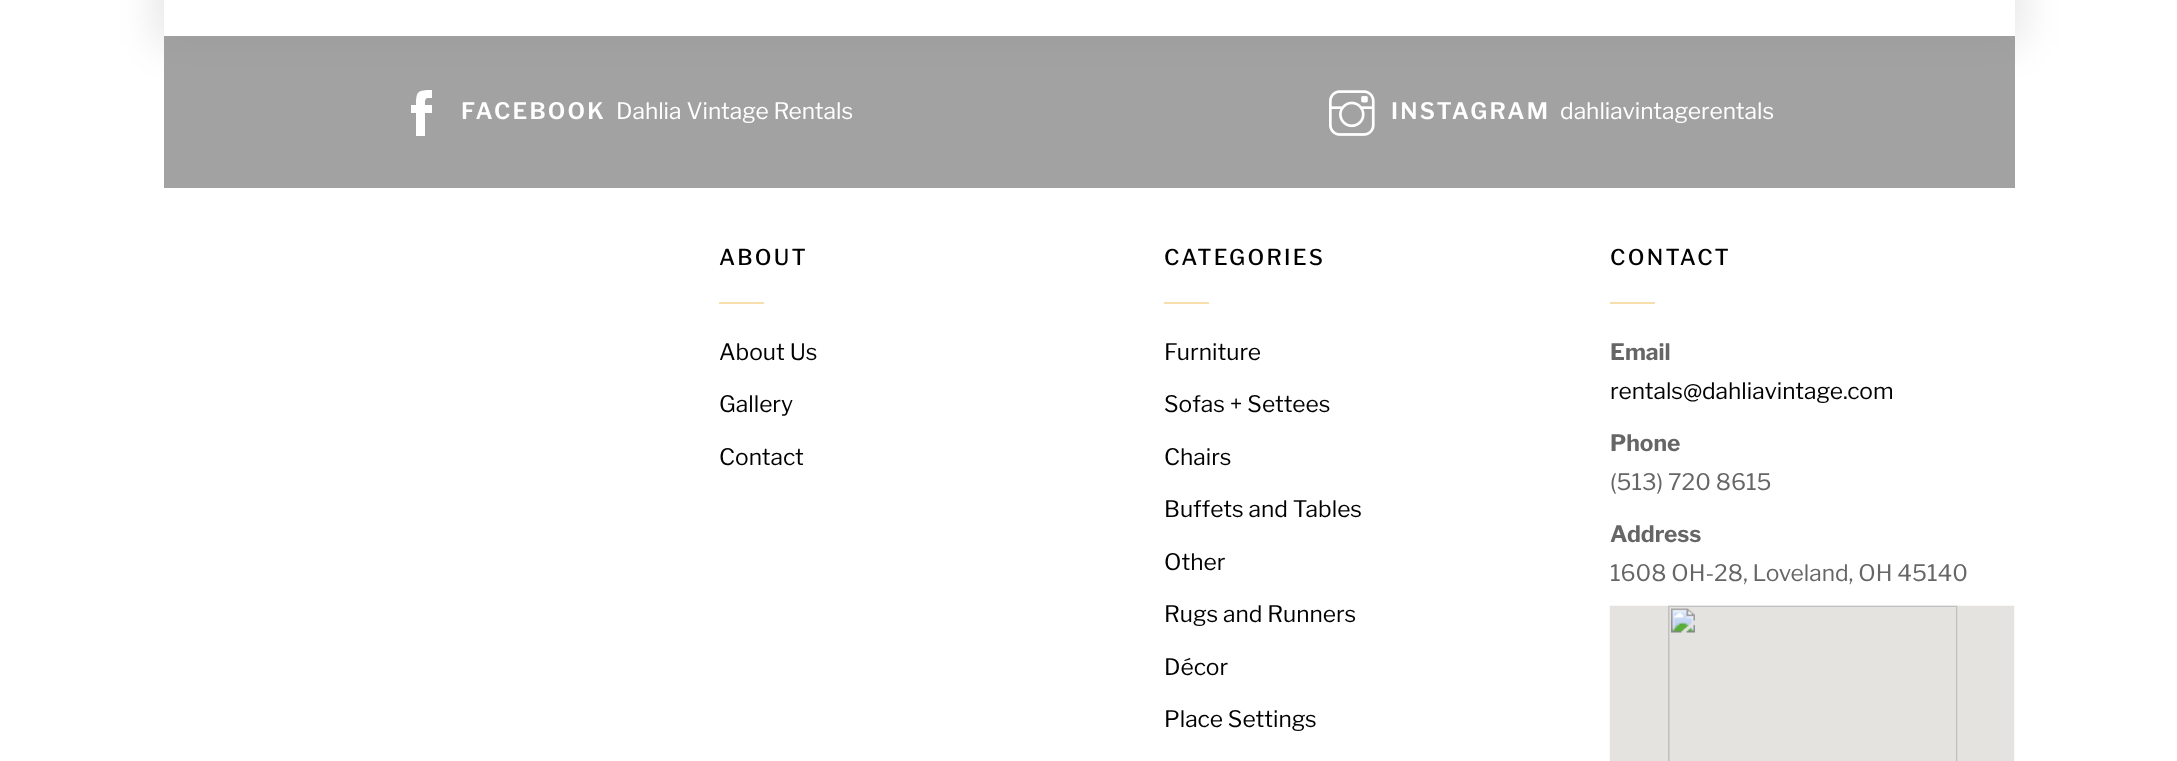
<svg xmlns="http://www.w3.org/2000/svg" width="2177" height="761">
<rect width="100%" height="100%" fill="#fff"/>
<rect x="156" y="-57" width="1866" height="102" fill="#0000001a" filter="blur(19px)"/>
<rect x="164" width="1851" height="36" fill="#fff"/>
<rect x="164" y="36" width="925" height="152" fill="#8b8b8bcc"/>
<path d="M432 105v8h-7v23h-9v-23h-5v-8h5c0-14 2-15 16-15v8c-7 0-7 0-7 7z" fill="#fff"/>
<text x="461" y="119" style="font-family:Libre Franklin;font-size:22.75px;font-weight:600;letter-spacing:2.25px;fill:#fff">FACEBOOK</text>
<text x="616" y="119" style="font-family:Libre Franklin;font-size:22.75px;fill:#fff">Dahlia Vintage Rentals</text>
<rect x="1089" y="36" width="926" height="152" fill="#8b8b8bcc"/>
<image x="1329" y="90" width="46" height="46" href="media/1.png"/>
<text x="1391" y="119" style="font-family:Libre Franklin;font-size:22.75px;font-weight:600;letter-spacing:2.25px;fill:#fff">INSTAGRAM</text>
<text x="1560" y="119" style="font-family:Libre Franklin;font-size:22.75px;fill:#fff">dahliavintagerentals</text>
<text x="719" y="265" style="font-family:Libre Franklin;font-size:21.75px;font-weight:500;letter-spacing:2.25px;fill:#000">ABOUT</text>
<rect x="719" y="302" width="45" height="2" fill="#f7dfad"/>
<text x="719" y="360" style="font-family:Libre Franklin;font-size:22.75px;fill:#000">About Us</text>
<text x="719" y="412" style="font-family:Libre Franklin;font-size:22.75px;fill:#000">Gallery</text>
<text x="719" y="465" style="font-family:Libre Franklin;font-size:22.75px;fill:#000">Contact</text>
<text x="1164" y="265" style="font-family:Libre Franklin;font-size:21.75px;font-weight:500;letter-spacing:2.25px;fill:#000">CATEGORIES</text>
<rect x="1164" y="302" width="45" height="2" fill="#f7dfad"/>
<text x="1164" y="360" style="font-family:Libre Franklin;font-size:22.75px;fill:#000">Furniture</text>
<text x="1164" y="412" style="font-family:Libre Franklin;font-size:22.75px;fill:#000">Sofas + Settees</text>
<text x="1164" y="465" style="font-family:Libre Franklin;font-size:22.75px;fill:#000">Chairs</text>
<text x="1164" y="517" style="font-family:Libre Franklin;font-size:22.75px;fill:#000">Buffets and Tables</text>
<text x="1164" y="570" style="font-family:Libre Franklin;font-size:22.75px;fill:#000">Other</text>
<text x="1164" y="622" style="font-family:Libre Franklin;font-size:22.75px;fill:#000">Rugs and Runners</text>
<text x="1164" y="675" style="font-family:Libre Franklin;font-size:22.75px;fill:#000">Décor</text>
<text x="1164" y="727" style="font-family:Libre Franklin;font-size:22.75px;fill:#000">Place Settings</text>
<text x="1610" y="265" style="font-family:Libre Franklin;font-size:21.75px;font-weight:500;letter-spacing:2.25px;fill:#000">CONTACT</text>
<rect x="1610" y="302" width="45" height="2" fill="#f7dfad"/>
<text x="1610" y="360" style="font-family:Libre Franklin;font-size:22.75px;font-weight:bold;fill:#666">Email</text>
<text x="1610" y="399" style="font-family:Libre Franklin;font-size:22.75px;fill:#000">rentals@dahliavintage.com</text>
<text x="1610" y="451" style="font-family:Libre Franklin;font-size:22.75px;font-weight:bold;fill:#666">Phone</text>
<text x="1610" y="490" style="font-family:Libre Franklin;font-size:22.75px;fill:#666">(513) 720 8615</text>
<text x="1610" y="542" style="font-family:Libre Franklin;font-size:22.75px;font-weight:bold;fill:#666">Address</text>
<text x="1610" y="581" style="font-family:Libre Franklin;font-size:22.75px;fill:#666">1608 OH-28, Loveland, OH 45140</text>
<image x="1609" y="605" width="406" height="156" href="media/2.png"/>
</svg>
